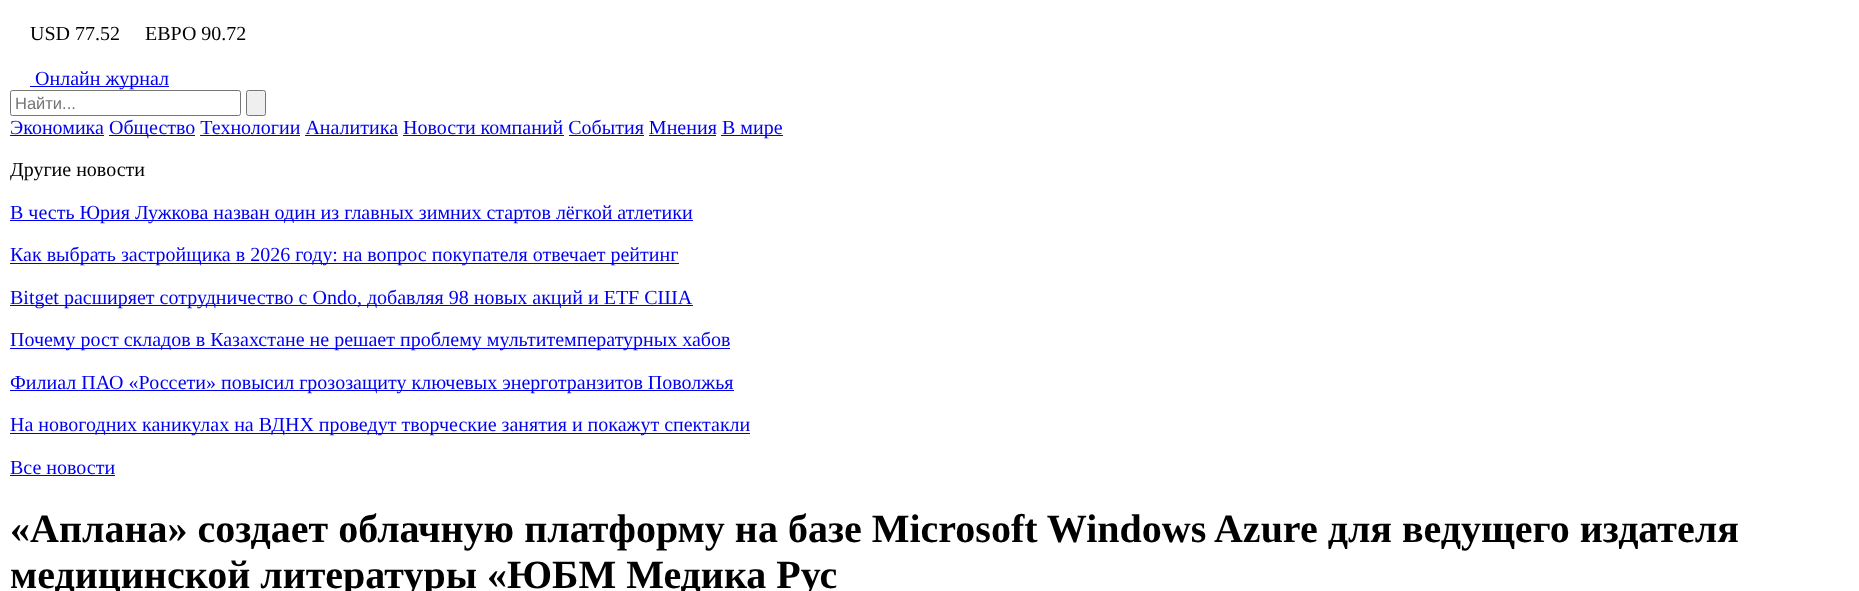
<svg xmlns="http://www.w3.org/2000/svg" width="1859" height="591">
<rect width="100%" height="100%" fill="#fff"/>
<text x="30" y="40" style="font-family:Liberation Serif;font-size:20px;fill:#000">USD 77.52</text>
<text x="145" y="40" style="font-family:Liberation Serif;font-size:20px;fill:#000">ЕВРО 90.72</text>
<rect x="30" y="86" width="139" height="1" fill="#00e"/>
<text x="35" y="85" style="font-family:Liberation Serif;font-size:20px;fill:#00e">Онлайн журнал</text>
<rect x="10.5" y="90.5" width="230" height="25" rx="2" fill="none" stroke="#767676"/>
<text x="15" y="109" style="font-family:Liberation Sans;font-size:16.5px;fill:#757575">Найти...</text>
<rect x="246.5" y="90.5" width="19" height="25" rx="2" fill="#efefef" stroke="#767676"/>
<text x="10" y="134" style="font-family:Liberation Serif;font-size:20px;fill:#00e">Экономика</text>
<rect x="10" y="135" width="94" height="1" fill="#00e"/>
<rect x="109" y="135" width="86" height="1" fill="#00e"/>
<text x="109" y="134" style="font-family:Liberation Serif;font-size:20px;fill:#00e">Общество Технологии Аналитика Новости компаний События Мнения</text>
<rect x="721" y="135" width="62" height="1" fill="#00e"/>
<text x="722" y="134" style="font-family:Liberation Serif;font-size:20px;fill:#00e">В мире</text>
<rect x="200" y="135" width="100" height="1" fill="#00e"/>
<rect x="305" y="135" width="93" height="1" fill="#00e"/>
<rect x="403" y="135" width="161" height="1" fill="#00e"/>
<rect x="569" y="135" width="75" height="1" fill="#00e"/>
<rect x="649" y="135" width="67" height="1" fill="#00e"/>
<text x="10" y="176" style="font-family:Liberation Serif;font-size:20px;fill:#000">Другие новости</text>
<rect x="10" y="220" width="683" height="1" fill="#00e"/>
<text x="10" y="219" style="font-family:Liberation Serif;font-size:20px;fill:#00e">В честь Юрия Лужкова назван один из главных зимних стартов лёгкой атлетики</text>
<rect x="10" y="263" width="669" height="1" fill="#00e"/>
<text x="10" y="261" style="font-family:Liberation Serif;font-size:20px;fill:#00e">Как выбрать застройщика в 2026 году: на вопрос покупателя отвечает рейтинг</text>
<rect x="10" y="305" width="683" height="1" fill="#00e"/>
<text x="10" y="304" style="font-family:Liberation Serif;font-size:20px;fill:#00e">Bitget расширяет сотрудничество с Ondo, добавляя 98 новых акций и ETF США</text>
<rect x="10" y="348" width="720" height="1" fill="#00e"/>
<text x="10" y="346" style="font-family:Liberation Serif;font-size:20px;fill:#00e">Почему рост складов в Казахстане не решает проблему мультитемпературных хабов</text>
<rect x="10" y="390" width="724" height="1" fill="#00e"/>
<text x="10" y="389" style="font-family:Liberation Serif;font-size:20px;fill:#00e">Филиал ПАО «Россети» повысил грозозащиту ключевых энерготранзитов Поволжья</text>
<rect x="10" y="433" width="740" height="1" fill="#00e"/>
<text x="10" y="431" style="font-family:Liberation Serif;font-size:20px;fill:#00e">На новогодних каникулах на ВДНХ проведут творческие занятия и покажут спектакли</text>
<text x="10" y="474" style="font-family:Liberation Serif;font-size:20px;fill:#00e">Все новости</text>
<rect x="10" y="475" width="105" height="1" fill="#00e"/>
<text x="10" y="542" style="font-family:Liberation Serif;font-size:40px;font-weight:bold;fill:#000">«Аплана» создает облачную платформу на базе Microsoft Windows Azure для ведущего издателя</text>
<text x="10" y="588" style="font-family:Liberation Serif;font-size:40px;font-weight:bold;fill:#000">медицинской литературы «ЮБМ Медика Рус</text>
</svg>
